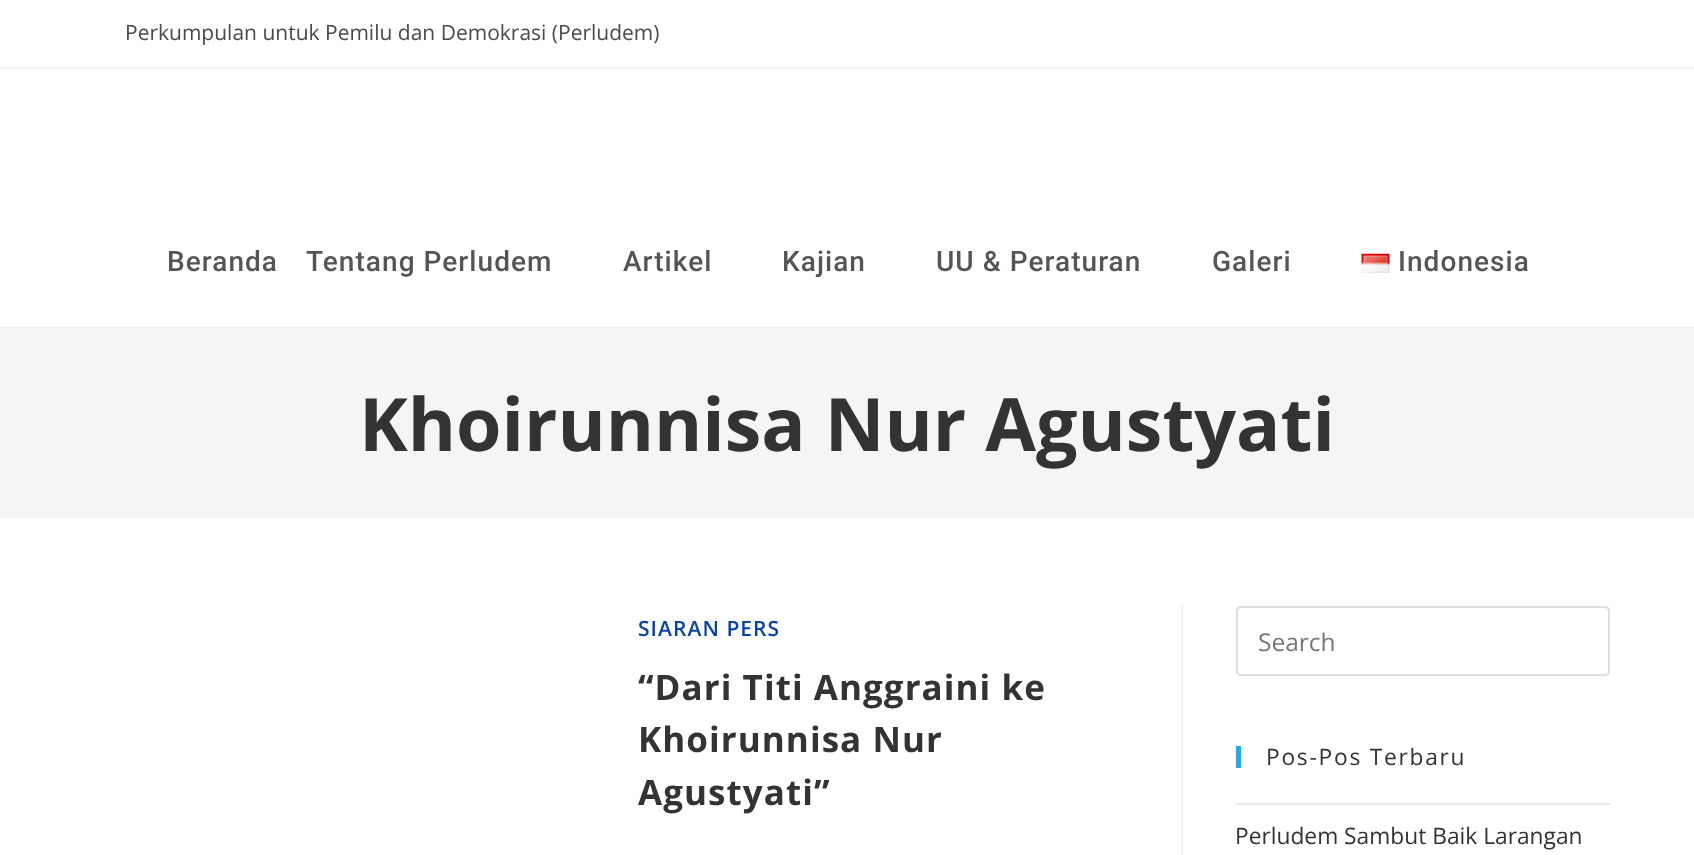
<svg xmlns="http://www.w3.org/2000/svg" width="1694" height="855">
<rect width="100%" height="100%" fill="#fff"/>
<rect y="67" width="1694" height="2" fill="#f1f1f1"/>
<text x="125" y="40" style="font-family:Open Sans;font-size:21px;fill:#4a4a4a">Perkumpulan untuk Pemilu dan Demokrasi (Perludem)</text>
<rect y="327" width="1694" height="2" fill="#f1f1f1"/>
<text x="167" y="271" style="font-family:Roboto;font-size:28px;font-weight:500;letter-spacing:1.05px;fill:#555">Beranda</text>
<text x="306" y="271" style="font-family:Roboto;font-size:28px;font-weight:500;letter-spacing:1.05px;fill:#555">Tentang Perludem</text>
<text x="623" y="271" style="font-family:Roboto;font-size:28px;font-weight:500;letter-spacing:1.05px;fill:#555">Artikel</text>
<text x="782" y="271" style="font-family:Roboto;font-size:28px;font-weight:500;letter-spacing:1.05px;fill:#555">Kajian</text>
<text x="936" y="271" style="font-family:Roboto;font-size:28px;font-weight:500;letter-spacing:1.05px;fill:#555">UU &amp; Peraturan</text>
<text x="1212" y="271" style="font-family:Roboto;font-size:28px;font-weight:500;letter-spacing:1.05px;fill:#555">Galeri</text>
<image x="1361" y="253" width="29" height="20" href="media/1.png"/>
<text x="1398" y="271" style="font-family:Roboto;font-size:28px;font-weight:500;letter-spacing:1.05px;fill:#555">Indonesia</text>
<rect y="329" width="1694" height="189" fill="#f5f5f5"/>
<text x="359" y="451" style="font-family:Open Sans;font-size:73.5px;font-weight:bold;fill:#333">Khoirunnisa Nur Agustyati</text>
<rect x="1181" y="606" width="2" height="249" fill="#f1f1f1"/>
<text x="638" y="636" style="font-family:Open Sans;font-size:21px;font-weight:600;letter-spacing:1.05px;fill:#0843aa">SIARAN PERS</text>
<text x="638" y="700" style="font-family:Open Sans;font-size:35px;font-weight:bold;letter-spacing:1.05px;fill:#333">“Dari Titi Anggraini ke</text>
<text x="638" y="752" style="font-family:Open Sans;font-size:35px;font-weight:bold;letter-spacing:1.05px;fill:#333">Khoirunnisa Nur</text>
<text x="638" y="805" style="font-family:Open Sans;font-size:35px;font-weight:bold;letter-spacing:1.05px;fill:#333">Agustyati”</text>
<rect x="1237" y="607" width="372" height="68" rx="4" fill="none" stroke="#ddd" stroke-width="2"/>
<text x="1258" y="651" style="font-family:Open Sans;font-size:24.5px;fill:#757575">Search</text>
<rect x="1236" y="746" width="5" height="22" fill="#13aff0"/>
<text x="1266" y="765" style="font-family:Open Sans;font-size:22.75px;letter-spacing:1.75px;fill:#333">Pos-Pos Terbaru</text>
<rect x="1236" y="803" width="374" height="2" fill="#e9e9e9"/>
<text x="1235" y="844" style="font-family:Open Sans;font-size:22.75px;fill:#333">Perludem Sambut Baik Larangan</text>
</svg>
